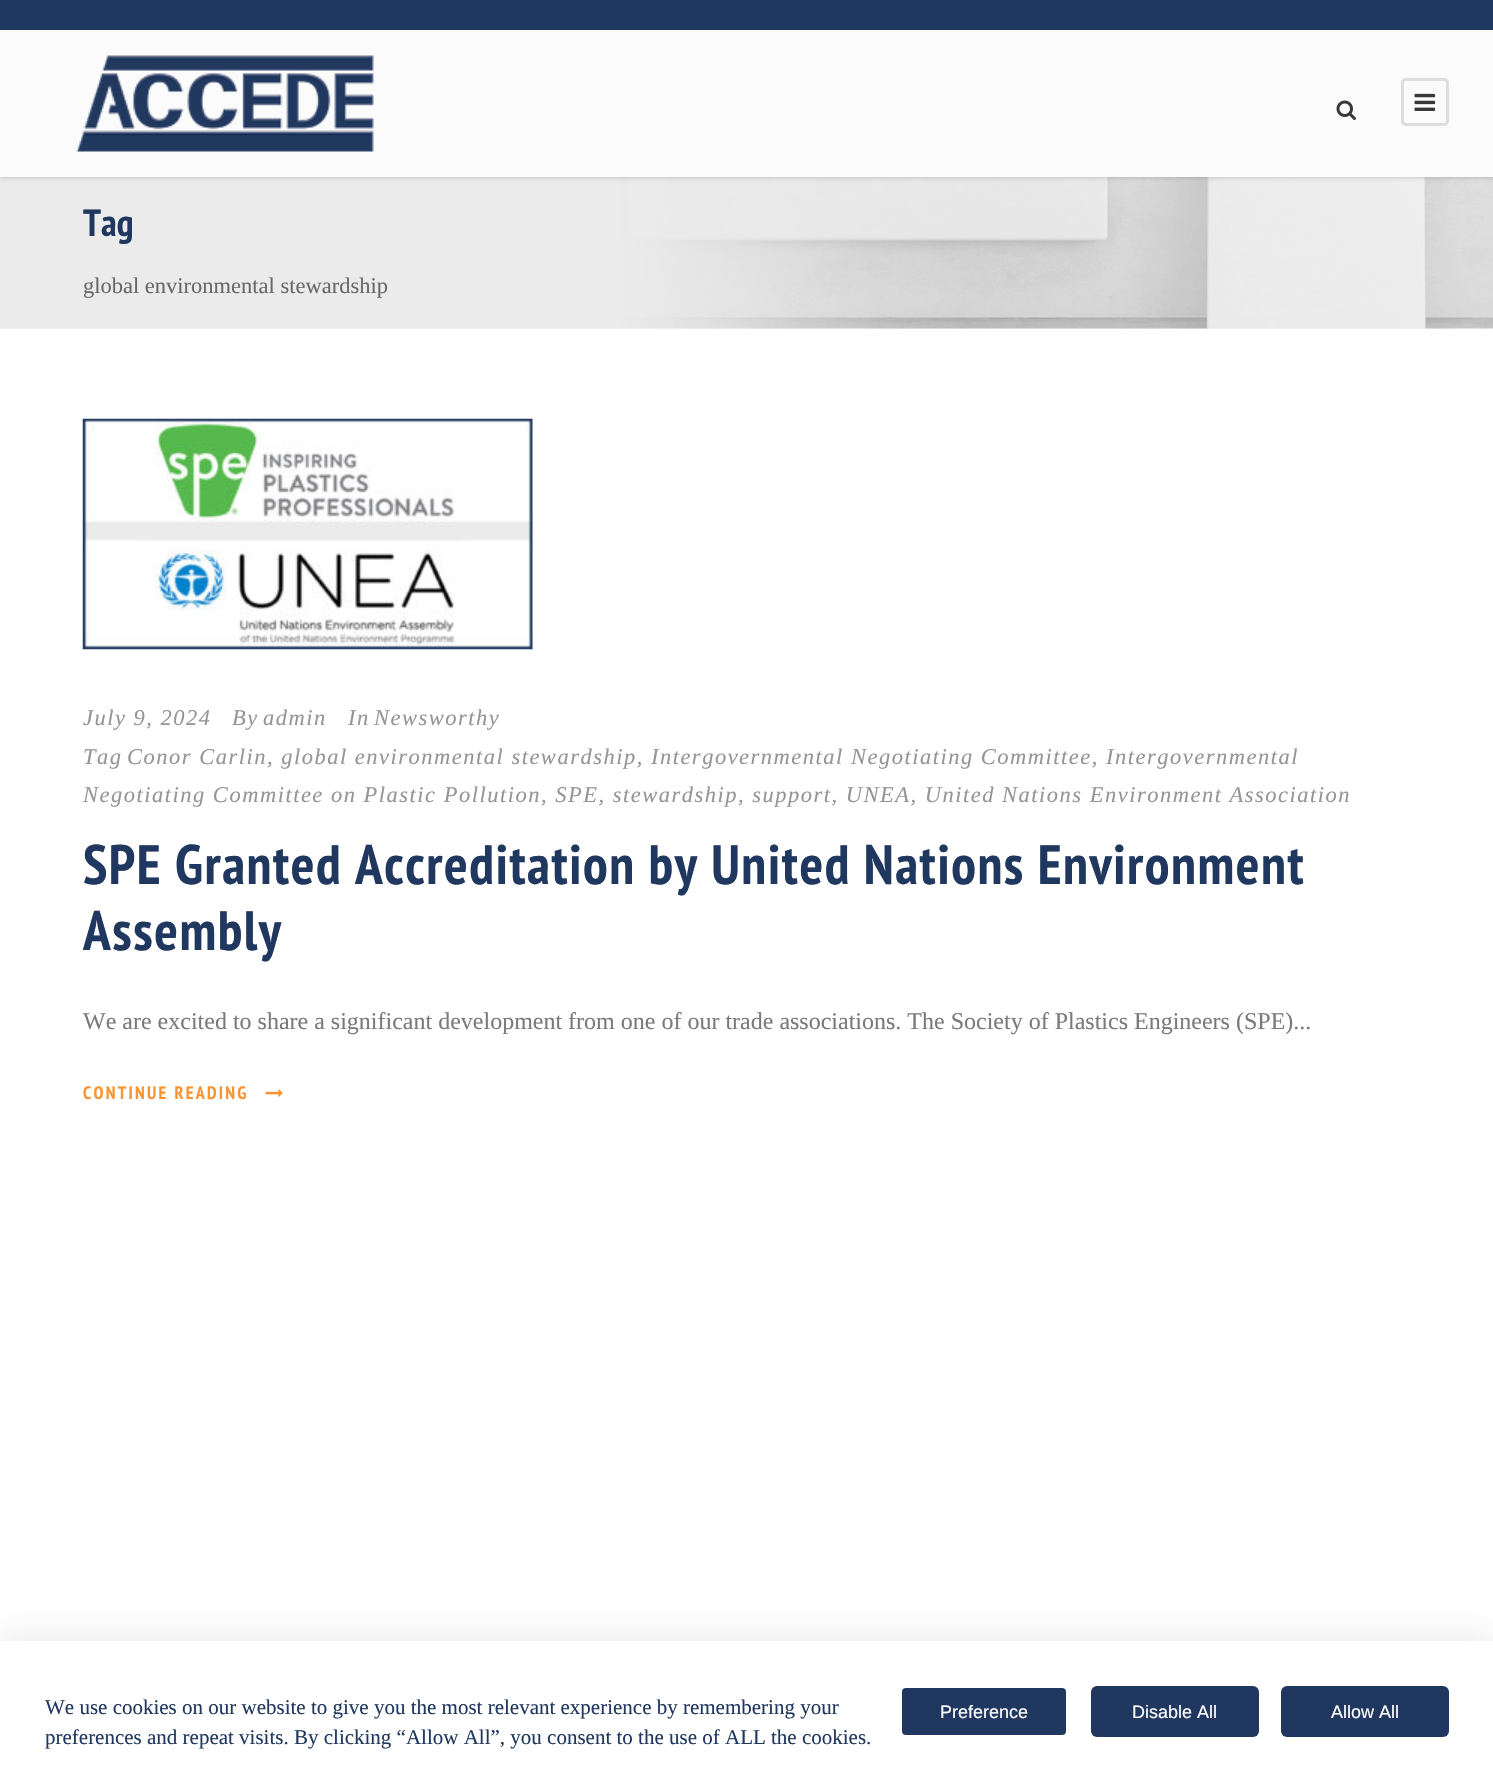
void draw(SkCanvas* canvas) {
	SkPaint fill;
	fill.setAntiAlias(true);
	auto makeFont = [&](const char* family, int weight, float size, bool italic = false) {
		SkFontStyle style(weight, SkFontStyle::kNormal_Width,
			italic ? SkFontStyle::kItalic_Slant : SkFontStyle::kUpright_Slant);
		SkFont result(fontMgr->matchFamilyStyle(family, style), size);
		result.setSubpixel(true);
		return result;
	};
	auto text = [&](const char* s, float x, float y, const SkFont& font) {
		canvas->drawString(s, x, y, font, fill);
	};
	auto spacedText = [&](const char* s, float x, float y, const SkFont& font, const SkPaint& ink, float letter, float word) {
		std::vector<SkGlyphID> glyphs(font.countText(s, strlen(s), SkTextEncoding::kUTF8));
		std::vector<float> xs(glyphs.size());
		font.textToGlyphs(s, strlen(s), SkTextEncoding::kUTF8, glyphs);
		font.getXPos(glyphs, xs, x);
		float extra = 0;
		for (size_t i = 0; i < glyphs.size(); i++) {
			xs[i] += extra;
			extra += letter + word * (glyphs[i] == font.unicharToGlyph(' '));
		}
		canvas->drawTextBlob(SkTextBlob::MakeFromPosHGlyphs(glyphs, xs, y, font), 0, 0, ink);
	};
	auto box = [&](float l, float t, float r, float b) {
		canvas->drawRect(SkRect::MakeLTRB(l, t, r, b), fill);
	};
	auto roundBox = [&](float l, float t, float r, float b, float radius) {
		canvas->drawRoundRect(SkRect::MakeLTRB(l, t, r, b), radius, radius, fill);
	};
	auto picture = [&](const char* path, float l, float t, float r, float b) {
		auto image = SkImages::DeferredFromEncodedData(SkData::MakeFromFileName(path));
		canvas->drawImageRect(image, SkRect::MakeLTRB(l, t, r, b), SkSamplingOptions());
	};
	canvas->clear(0xFFFFFFFF);
	fill.setColor(0xFFF7F7F7);
	box(0, 328, 1493, 329);
	fill.setColor(0xFF20385F);
	box(0, 0, 1493, 30);
	picture("image3.png", 0, 177, 1493, 329);
	fill.setColor(0x1A000000);
	fill.setMaskFilter(SkMaskFilter::MakeBlur(kNormal_SkBlurStyle, 1.5f));
	canvas->drawRect(SkRect::MakeLTRB(0, 32, 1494, 179), fill);
	fill.setMaskFilter(nullptr);
	fill.setColor(0xFFFBFBFB);
	box(0, 31, 1493, 177);
	picture("image0.png", 76, 55, 374, 152);
	picture("image1.png", 1336, 100, 1356, 120);
	fill.setStyle(SkPaint::kStroke_Style);
	fill.setStrokeWidth(3);
	fill.setColor(0xFFDDDDDD);
	canvas->drawRoundRect(SkRect::MakeLTRB(1402.5f, 79.5f, 1447.5f, 124.5f), 3.5f, 3.5f, fill);
	picture("image2.png", 1414, 93, 1436, 111);
	picture("image4.png", 82, 418, 533, 650);
	picture("image5.png", 265, 1089, 283, 1097);
	fill.setStyle(SkPaint::kFill_Style);
	fill.setColor(0x12000000);
	fill.setMaskFilter(SkMaskFilter::MakeBlur(kNormal_SkBlurStyle, 14));
	canvas->drawRect(SkRect::MakeLTRB(0, 1635, 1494, 1776), fill);
	fill.setMaskFilter(nullptr);
	fill.setColor(0xFFFFFFFF);
	box(0, 1641, 1493, 1782);
	fill.setColor(0xFF20385F);
	canvas->drawRoundRect(SkRect::MakeLTRB(901, 1687, 1067, 1736), 5, 5, fill);
	fill.setStyle(SkPaint::kStroke_Style);
	fill.setStrokeWidth(2);
	fill.setColor(0xFFFFFFFF);
	canvas->drawRoundRect(SkRect::MakeLTRB(901, 1687, 1067, 1736), 5, 5, fill);
	fill.setStyle(SkPaint::kFill_Style);
	fill.setColor(0xFF20385F);
	roundBox(1091, 1686, 1259, 1737, 6);
	roundBox(1281, 1686, 1449, 1737, 6);
	auto font1 = makeFont("PT Sans Narrow", 700, 38);
	text("Tag", 83, 236, font1);
	auto font2 = makeFont("Liberation Serif", 400, 22.5f);
	fill.setColor(0xFF686868);
	text("global environmental stewardship", 83, 293, font2);
	auto font3 = makeFont("Liberation Serif", 400, 22.5f, true);
	fill.setColor(0xFF959595);
	spacedText("July 9, 2024", 83, 725, font3, fill, 1.5f, 0);
	spacedText("By", 232, 725, font3, fill, 1.5f, 0);
	spacedText("admin", 263, 725, font3, fill, 1.5f, 0);
	spacedText("In", 348, 725, font3, fill, 1.5f, 0);
	spacedText("Newsworthy", 374, 725, font3, fill, 1.5f, 0);
	spacedText("Tag", 83, 764, font3, fill, 1.5f, 0);
	spacedText("Conor Carlin, global environmental stewardship, Intergovernmental Negotiating Committee, Intergovernmental", 127, 764, font3, fill, 1.5f, 0);
	spacedText("Negotiating Committee on Plastic Pollution, SPE, stewardship, support, UNEA, United Nations Environment Association", 83, 802, font3, fill, 1.5f, 0);
	auto font4 = makeFont("PT Sans Narrow", 700, 55.5f);
	fill.setColor(0xFF20385F);
	spacedText("SPE Granted Accreditation by United Nations Environment", 83, 884, font4, fill, 1.5f, 0);
	spacedText("Assembly", 83, 950, font4, fill, 1.5f, 0);
	auto font5 = makeFont("Liberation Serif", 400, 24);
	fill.setColor(0xFF7A7A7A);
	text("We are excited to share a significant development from one of our trade associations. The Society of Plastics Engineers (SPE)...", 83, 1029, font5);
	auto font6 = makeFont("PT Sans Narrow", 700, 18);
	fill.setColor(0xFFF79533);
	spacedText("CONTINUE READING", 83, 1099, font6, fill, 2.25f, 0);
	auto font7 = makeFont("Liberation Serif", 400, 21);
	fill.setColor(0xFF20385F);
	text("We use cookies on our website to give you the most relevant experience by remembering your", 45, 1714, font7);
	text("preferences and repeat visits. By clicking “Allow All”, you consent to the use of ALL the cookies.", 45, 1744, font7);
	auto font8 = makeFont("Liberation Sans", 400, 18);
	fill.setColor(0xFFFFFFFF);
	text("Preference", 940, 1718, font8);
	text("Disable All", 1132, 1718, font8);
	text("Allow All", 1331, 1718, font8);
}
